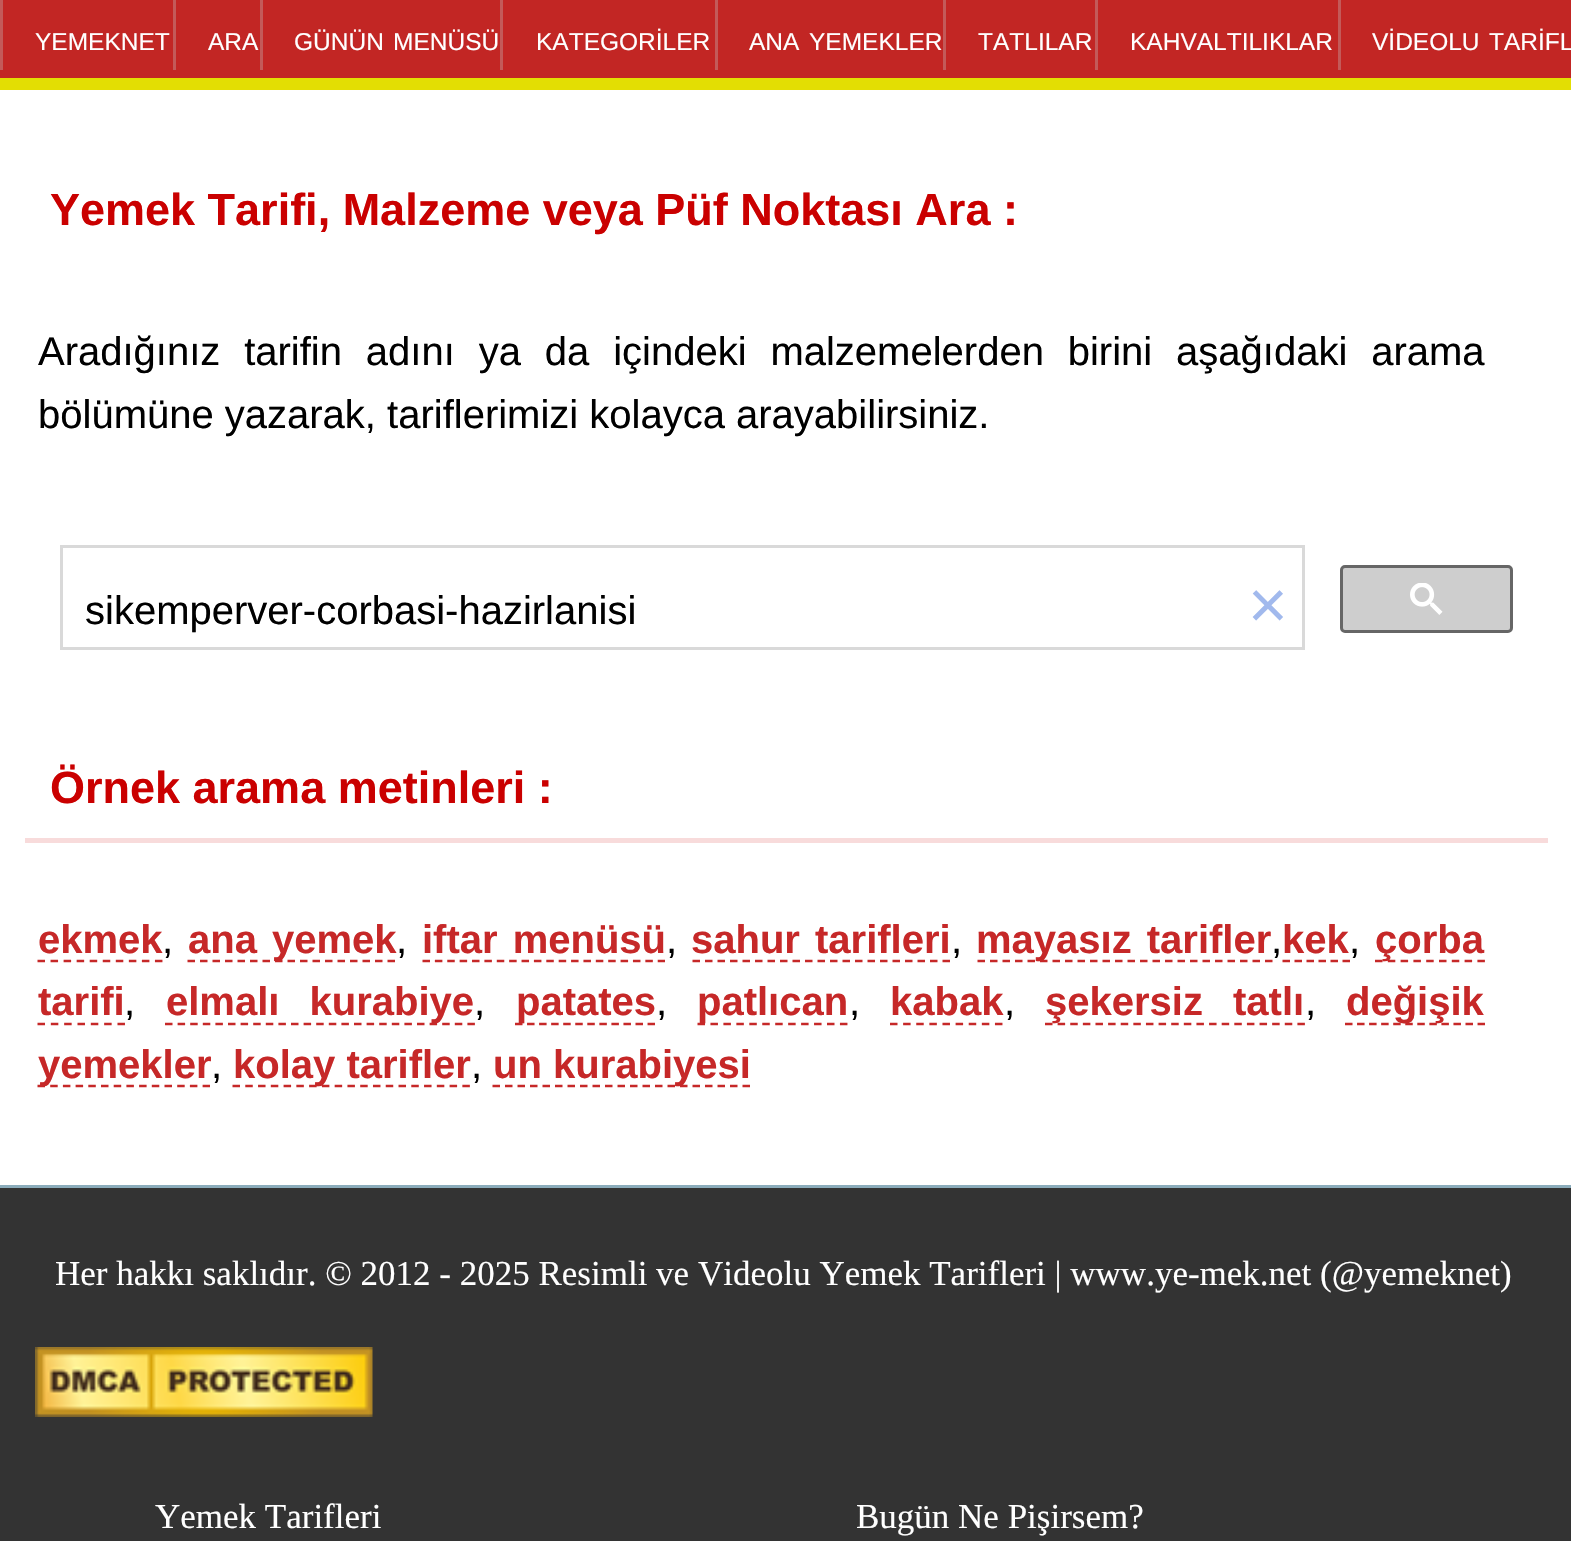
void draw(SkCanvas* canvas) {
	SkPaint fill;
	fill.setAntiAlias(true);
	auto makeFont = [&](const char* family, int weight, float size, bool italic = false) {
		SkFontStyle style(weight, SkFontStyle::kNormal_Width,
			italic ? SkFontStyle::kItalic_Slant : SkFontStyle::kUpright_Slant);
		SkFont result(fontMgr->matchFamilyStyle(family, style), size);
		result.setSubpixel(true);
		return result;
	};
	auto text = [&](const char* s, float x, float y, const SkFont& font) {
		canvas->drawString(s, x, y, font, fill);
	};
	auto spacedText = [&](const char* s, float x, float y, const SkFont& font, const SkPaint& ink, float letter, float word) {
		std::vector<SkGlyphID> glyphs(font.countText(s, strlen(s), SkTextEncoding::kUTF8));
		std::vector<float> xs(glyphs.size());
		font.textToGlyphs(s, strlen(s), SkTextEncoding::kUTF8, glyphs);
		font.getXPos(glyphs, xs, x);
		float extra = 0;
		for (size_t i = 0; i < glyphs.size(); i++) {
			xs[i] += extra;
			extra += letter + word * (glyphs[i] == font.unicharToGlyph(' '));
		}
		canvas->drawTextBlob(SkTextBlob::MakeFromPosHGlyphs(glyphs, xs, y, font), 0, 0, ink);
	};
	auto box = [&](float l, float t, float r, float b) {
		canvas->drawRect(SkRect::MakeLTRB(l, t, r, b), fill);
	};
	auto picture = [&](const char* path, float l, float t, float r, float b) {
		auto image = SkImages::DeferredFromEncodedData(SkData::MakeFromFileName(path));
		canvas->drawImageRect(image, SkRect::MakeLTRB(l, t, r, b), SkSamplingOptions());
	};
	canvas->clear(0xFFFFFFFF);
	fill.setColor(0xFFC22624);
	box(0, 0, 1571, 78);
	fill.setColor(0xFFE3DE03);
	box(0, 78, 1571, 90);
	fill.setColor(0xFFC35A59);
	box(0, 0, 3, 70);
	box(173, 0, 176, 70);
	box(260, 0, 263, 70);
	box(500, 0, 503, 70);
	box(715, 0, 718, 70);
	box(943, 0, 946, 70);
	box(1095, 0, 1098, 70);
	box(1338, 0, 1341, 70);
	fill.setStyle(SkPaint::kStroke_Style);
	fill.setStrokeWidth(3);
	fill.setColor(0xFFD9D9D9);
	canvas->drawRect(SkRect::MakeLTRB(61.5f, 546.5f, 1303.5f, 648.5f), fill);
	fill.setStyle(SkPaint::kFill_Style);
	fill.setColor(0xFFCECECE);
	canvas->drawRoundRect(SkRect::MakeLTRB(1341.5f, 566.5f, 1511.5f, 631.5f), 3.5f, 3.5f, fill);
	fill.setStyle(SkPaint::kStroke_Style);
	fill.setColor(0xFF666666);
	canvas->drawRoundRect(SkRect::MakeLTRB(1341.5f, 566.5f, 1511.5f, 631.5f), 3.5f, 3.5f, fill);
	picture("image0.png", 1410, 583, 1443, 615);
	fill.setStyle(SkPaint::kFill_Style);
	fill.setColor(0xFFF8DBDB);
	box(25, 838, 1548, 843);
	fill.setStyle(SkPaint::kStroke_Style);
	fill.setStrokeWidth(2.5f);
	fill.setColor(0xFFC62828);
	fill.setPathEffect(SkDashPathEffect::Make({{7.5f, 5.55f}}, 0));
	canvas->drawPath(SkPathBuilder().moveTo(37.5f, 961).lineTo(162.5f, 961).detach(), fill);
	fill.setPathEffect(nullptr);
	fill.setPathEffect(SkDashPathEffect::Make({{7.5f, 5}}, 0));
	canvas->drawPath(SkPathBuilder().moveTo(187.5f, 961).lineTo(395, 961).detach(), fill);
	fill.setPathEffect(nullptr);
	fill.setPathEffect(SkDashPathEffect::Make({{7.5f, 4.88f}}, 0));
	canvas->drawPath(SkPathBuilder().moveTo(422.5f, 961).lineTo(665, 961).detach(), fill);
	fill.setPathEffect(nullptr);
	fill.setPathEffect(SkDashPathEffect::Make({{7.5f, 5}}, 0));
	canvas->drawPath(SkPathBuilder().moveTo(692.5f, 961).lineTo(950, 961).detach(), fill);
	fill.setPathEffect(nullptr);
	fill.setPathEffect(SkDashPathEffect::Make({{7.5f, 5}}, 0));
	canvas->drawPath(SkPathBuilder().moveTo(977.5f, 961).lineTo(1272.5f, 961).detach(), fill);
	fill.setPathEffect(nullptr);
	fill.setPathEffect(SkDashPathEffect::Make({{7.5f, 4.5f}}, 0));
	canvas->drawPath(SkPathBuilder().moveTo(1282.5f, 961).lineTo(1350, 961).detach(), fill);
	fill.setPathEffect(nullptr);
	fill.setPathEffect(SkDashPathEffect::Make({{7.5f, 5.3f}}, 0));
	canvas->drawPath(SkPathBuilder().moveTo(1375, 961).lineTo(1485, 961).detach(), fill);
	fill.setPathEffect(nullptr);
	fill.setPathEffect(SkDashPathEffect::Make({{7.5f, 5.83f}}, 0));
	canvas->drawPath(SkPathBuilder().moveTo(37.5f, 1024).lineTo(125, 1024).detach(), fill);
	fill.setPathEffect(nullptr);
	fill.setPathEffect(SkDashPathEffect::Make({{7.5f, 5.1f}}, 0));
	canvas->drawPath(SkPathBuilder().moveTo(165, 1024).lineTo(475, 1024).detach(), fill);
	fill.setPathEffect(nullptr);
	fill.setPathEffect(SkDashPathEffect::Make({{7.5f, 4.55f}}, 0));
	canvas->drawPath(SkPathBuilder().moveTo(515, 1024).lineTo(655, 1024).detach(), fill);
	fill.setPathEffect(nullptr);
	fill.setPathEffect(SkDashPathEffect::Make({{7.5f, 5.45f}}, 0));
	canvas->drawPath(SkPathBuilder().moveTo(697.5f, 1024).lineTo(847.5f, 1024).detach(), fill);
	fill.setPathEffect(nullptr);
	fill.setPathEffect(SkDashPathEffect::Make({{7.5f, 5.62f}}, 0));
	canvas->drawPath(SkPathBuilder().moveTo(890, 1024).lineTo(1002.5f, 1024).detach(), fill);
	fill.setPathEffect(nullptr);
	fill.setPathEffect(SkDashPathEffect::Make({{7.5f, 5.12f}}, 0));
	canvas->drawPath(SkPathBuilder().moveTo(1045, 1024).lineTo(1305, 1024).detach(), fill);
	fill.setPathEffect(nullptr);
	fill.setPathEffect(SkDashPathEffect::Make({{7.5f, 4.55f}}, 0));
	canvas->drawPath(SkPathBuilder().moveTo(1345, 1024).lineTo(1485, 1024).detach(), fill);
	fill.setPathEffect(nullptr);
	fill.setPathEffect(SkDashPathEffect::Make({{7.5f, 5.2f}}, 0));
	canvas->drawPath(SkPathBuilder().moveTo(37.5f, 1086).lineTo(210, 1086).detach(), fill);
	fill.setPathEffect(nullptr);
	fill.setPathEffect(SkDashPathEffect::Make({{7.5f, 5.27f}}, 0));
	canvas->drawPath(SkPathBuilder().moveTo(232.5f, 1086).lineTo(470, 1086).detach(), fill);
	fill.setPathEffect(nullptr);
	fill.setPathEffect(SkDashPathEffect::Make({{7.5f, 5}}, 0));
	canvas->drawPath(SkPathBuilder().moveTo(492.5f, 1086).lineTo(750, 1086).detach(), fill);
	fill.setPathEffect(nullptr);
	fill.setStyle(SkPaint::kFill_Style);
	fill.setColor(0xFF8BACBB);
	box(0, 1185, 1571, 1188);
	fill.setColor(0xFF333333);
	box(0, 1188, 1571, 1541);
	picture("image1.png", 35, 1347, 373, 1417);
	auto font1 = makeFont("Liberation Sans", 400, 24.5f);
	fill.setColor(0xFFFFFFFF);
	text("YEMEKNET", 35, 50, font1);
	text("ARA", 208, 50, font1);
	text("GÜNÜN", 294, 50, font1);
	text("MENÜSÜ", 393, 50, font1);
	text("KATEGORİLER", 536, 50, font1);
	text("ANA", 749, 50, font1);
	text("YEMEKLER", 809, 50, font1);
	text("TATLILAR", 978, 50, font1);
	text("KAHVALTILIKLAR", 1130, 50, font1);
	text("VİDEOLU", 1372, 50, font1);
	text("TARİFL", 1489, 50, font1);
	auto font2 = makeFont("Liberation Sans", 700, 45);
	fill.setColor(0xFFCA0000);
	text("Yemek Tarifi, Malzeme veya Püf Noktası Ara :", 50, 225, font2);
	auto font3 = makeFont("Liberation Sans", 400, 40);
	fill.setColor(0xFF000000);
	spacedText("Aradığınız tarifin adını ya da içindeki malzemelerden birini aşağıdaki arama", 38, 365, font3, fill, 0, 12.75f);
	text("bölümüne yazarak, tariflerimizi kolayca arayabilirsiniz.", 38, 428, font3);
	text("sikemperver-corbasi-hazirlanisi", 85, 624, font3);
	auto font4 = makeFont("Liberation Sans", 400, 68);
	fill.setColor(0xFFA1B9ED);
	text("×", 1248, 628, font4);
	fill.setColor(0xFFCA0000);
	text("Örnek arama metinleri :", 50, 803, font2);
	auto font5 = makeFont("Liberation Sans", 700, 40);
	fill.setColor(0xFFC62828);
	text("ekmek", 38, 953, font5);
	fill.setColor(0xFF000000);
	text(",", 162, 953, font3);
	fill.setColor(0xFFC62828);
	spacedText("ana yemek", 188, 953, font5, fill, 0, 4);
	fill.setColor(0xFF000000);
	text(",", 396, 953, font3);
	fill.setColor(0xFFC62828);
	spacedText("iftar menüsü", 422, 953, font5, fill, 0, 4);
	fill.setColor(0xFF000000);
	text(",", 666, 953, font3);
	fill.setColor(0xFFC62828);
	spacedText("sahur tarifleri", 691, 953, font5, fill, 0, 4);
	fill.setColor(0xFF000000);
	text(",", 951, 953, font3);
	fill.setColor(0xFFC62828);
	spacedText("mayasız tarifler", 976, 953, font5, fill, 0, 4);
	fill.setColor(0xFF000000);
	text(",", 1271, 953, font3);
	fill.setColor(0xFFC62828);
	text("kek", 1282, 953, font5);
	fill.setColor(0xFF000000);
	text(",", 1349, 953, font3);
	fill.setColor(0xFFC62828);
	text("çorba", 1375, 953, font5);
	text("tarifi", 38, 1015, font5);
	fill.setColor(0xFF000000);
	text(",", 124, 1015, font3);
	fill.setColor(0xFFC62828);
	spacedText("elmalı kurabiye", 166, 1015, font5, fill, 0, 19);
	fill.setColor(0xFF000000);
	text(",", 474, 1015, font3);
	fill.setColor(0xFFC62828);
	text("patates", 516, 1015, font5);
	fill.setColor(0xFF000000);
	text(",", 656, 1015, font3);
	fill.setColor(0xFFC62828);
	text("patlıcan", 697, 1015, font5);
	fill.setColor(0xFF000000);
	text(",", 849, 1015, font3);
	fill.setColor(0xFFC62828);
	text("kabak", 890, 1015, font5);
	fill.setColor(0xFF000000);
	text(",", 1004, 1015, font3);
	fill.setColor(0xFFC62828);
	spacedText("şekersiz tatlı", 1045, 1015, font5, fill, 0, 19);
	fill.setColor(0xFF000000);
	text(",", 1305, 1015, font3);
	fill.setColor(0xFFC62828);
	text("değişik", 1346, 1015, font5);
	text("yemekler", 38, 1078, font5);
	fill.setColor(0xFF000000);
	text(",", 211, 1078, font3);
	fill.setColor(0xFFC62828);
	text("kolay tarifler", 233, 1078, font5);
	fill.setColor(0xFF000000);
	text(",", 471, 1078, font3);
	fill.setColor(0xFFC62828);
	text("un kurabiyesi", 493, 1078, font5);
	auto font6 = makeFont("Liberation Serif", 400, 35);
	fill.setColor(0xFFFFFFFF);
	text("Her hakkı saklıdır. © 2012 - 2025 Resimli ve Videolu Yemek Tarifleri | www.ye-mek.net (@yemeknet)", 55, 1285, font6);
	text("Yemek Tarifleri", 155, 1528, font6);
	text("Bugün Ne Pişirsem?", 856, 1528, font6);
}
